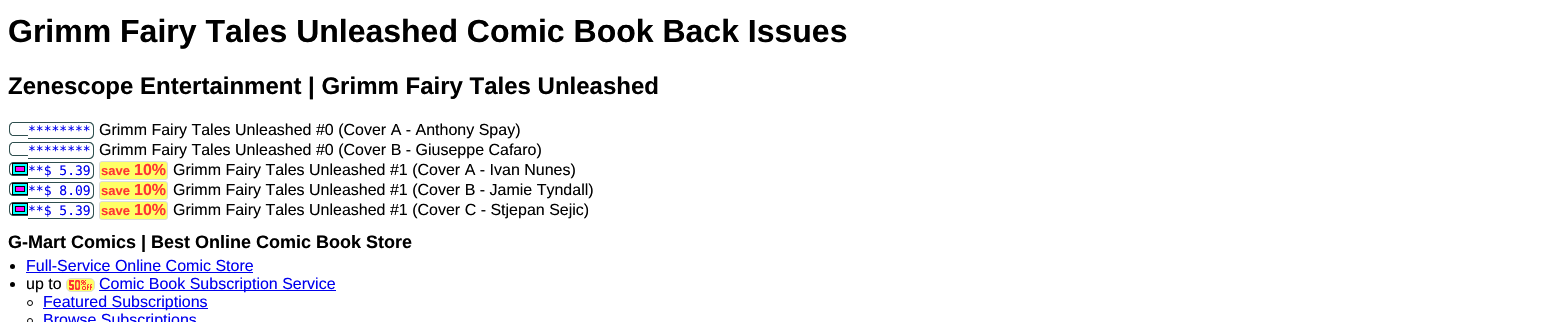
void draw(SkCanvas* canvas) {
	SkPaint fill;
	fill.setAntiAlias(true);
	auto makeFont = [&](const char* family, int weight, float size, bool italic = false) {
		SkFontStyle style(weight, SkFontStyle::kNormal_Width,
			italic ? SkFontStyle::kItalic_Slant : SkFontStyle::kUpright_Slant);
		SkFont result(fontMgr->matchFamilyStyle(family, style), size);
		result.setSubpixel(true);
		return result;
	};
	auto text = [&](const char* s, float x, float y, const SkFont& font) {
		canvas->drawString(s, x, y, font, fill);
	};
	auto box = [&](float l, float t, float r, float b) {
		canvas->drawRect(SkRect::MakeLTRB(l, t, r, b), fill);
	};
	auto picture = [&](const char* path, float l, float t, float r, float b) {
		auto image = SkImages::DeferredFromEncodedData(SkData::MakeFromFileName(path));
		canvas->drawImageRect(image, SkRect::MakeLTRB(l, t, r, b), SkSamplingOptions());
	};
	canvas->clear(0xFFFFFFFF);
	fill.setColor(0xFF2F4F4F);
	canvas->drawPath(SkPathBuilder(SkPathFillType::kEvenOdd).moveTo(14, 122).lineTo(28, 122).lineTo(28, 136).lineTo(14, 136).cubicTo(11, 136, 9, 134, 9, 131).lineTo(9, 127).cubicTo(9, 124, 11, 122, 14, 122).close().moveTo(14, 123).lineTo(28, 123).lineTo(28, 135).lineTo(16.5f, 135).cubicTo(10, 135, 10, 133.5f, 10, 128).cubicTo(10, 125.5f, 11, 123, 14, 123).close().detach(), fill);
	canvas->drawPath(SkPathBuilder(SkPathFillType::kEvenOdd).moveTo(28, 122).lineTo(89, 122).cubicTo(92, 122, 94, 124, 94, 127).lineTo(94, 134).cubicTo(94, 137, 92, 139, 89, 139).lineTo(28, 139).close().moveTo(28, 123).lineTo(89, 123).cubicTo(91, 123, 93, 125, 93, 127).lineTo(93, 134).cubicTo(93, 136, 91, 138, 89, 138).lineTo(28, 138).close().detach(), fill);
	fill.setColor(0xFFFFFFFF);
	box(12, 123, 16, 135);
	fill.setColor(0xFF2F4F4F);
	canvas->drawPath(SkPathBuilder(SkPathFillType::kEvenOdd).moveTo(14, 142).lineTo(28, 142).lineTo(28, 156).lineTo(14, 156).cubicTo(11, 156, 9, 154, 9, 151).lineTo(9, 147).cubicTo(9, 144, 11, 142, 14, 142).close().moveTo(14, 143).lineTo(28, 143).lineTo(28, 155).lineTo(16.5f, 155).cubicTo(10, 155, 10, 153.5f, 10, 148).cubicTo(10, 145.5f, 11, 143, 14, 143).close().detach(), fill);
	canvas->drawPath(SkPathBuilder(SkPathFillType::kEvenOdd).moveTo(28, 142).lineTo(89, 142).cubicTo(92, 142, 94, 144, 94, 147).lineTo(94, 154).cubicTo(94, 157, 92, 159, 89, 159).lineTo(28, 159).close().moveTo(28, 143).lineTo(89, 143).cubicTo(91, 143, 93, 145, 93, 147).lineTo(93, 154).cubicTo(93, 156, 91, 158, 89, 158).lineTo(28, 158).close().detach(), fill);
	fill.setColor(0xFFFFFFFF);
	box(12, 143, 16, 155);
	fill.setColor(0xFF2F4F4F);
	canvas->drawPath(SkPathBuilder(SkPathFillType::kEvenOdd).moveTo(14, 162).lineTo(28, 162).lineTo(28, 176).lineTo(14, 176).cubicTo(11, 176, 9, 174, 9, 171).lineTo(9, 167).cubicTo(9, 164, 11, 162, 14, 162).close().moveTo(14, 163).lineTo(28, 163).lineTo(28, 175).lineTo(16.5f, 175).cubicTo(10, 175, 10, 173.5f, 10, 168).cubicTo(10, 165.5f, 11, 163, 14, 163).close().detach(), fill);
	picture("image0.png", 12, 163, 28, 175);
	canvas->drawPath(SkPathBuilder(SkPathFillType::kEvenOdd).moveTo(28, 162).lineTo(89, 162).cubicTo(92, 162, 94, 164, 94, 167).lineTo(94, 174).cubicTo(94, 177, 92, 179, 89, 179).lineTo(28, 179).close().moveTo(28, 163).lineTo(89, 163).cubicTo(91, 163, 93, 165, 93, 167).lineTo(93, 174).cubicTo(93, 176, 91, 178, 89, 178).lineTo(28, 178).close().detach(), fill);
	fill.setColor(0xFFFFFF66);
	canvas->drawRoundRect(SkRect::MakeLTRB(99.5f, 161.5f, 167.5f, 179.5f), 2.5f, 2.5f, fill);
	fill.setStyle(SkPaint::kStroke_Style);
	fill.setStrokeWidth(1);
	fill.setColor(0xFFDCDCDC);
	canvas->drawRoundRect(SkRect::MakeLTRB(99.5f, 161.5f, 167.5f, 179.5f), 2.5f, 2.5f, fill);
	fill.setStyle(SkPaint::kFill_Style);
	fill.setColor(0xFF2F4F4F);
	canvas->drawPath(SkPathBuilder(SkPathFillType::kEvenOdd).moveTo(14, 182).lineTo(28, 182).lineTo(28, 196).lineTo(14, 196).cubicTo(11, 196, 9, 194, 9, 191).lineTo(9, 187).cubicTo(9, 184, 11, 182, 14, 182).close().moveTo(14, 183).lineTo(28, 183).lineTo(28, 195).lineTo(16.5f, 195).cubicTo(10, 195, 10, 193.5f, 10, 188).cubicTo(10, 185.5f, 11, 183, 14, 183).close().detach(), fill);
	picture("image0.png", 12, 183, 28, 195);
	canvas->drawPath(SkPathBuilder(SkPathFillType::kEvenOdd).moveTo(28, 182).lineTo(89, 182).cubicTo(92, 182, 94, 184, 94, 187).lineTo(94, 194).cubicTo(94, 197, 92, 199, 89, 199).lineTo(28, 199).close().moveTo(28, 183).lineTo(89, 183).cubicTo(91, 183, 93, 185, 93, 187).lineTo(93, 194).cubicTo(93, 196, 91, 198, 89, 198).lineTo(28, 198).close().detach(), fill);
	fill.setColor(0xFFFFFF66);
	canvas->drawRoundRect(SkRect::MakeLTRB(99.5f, 181.5f, 167.5f, 199.5f), 2.5f, 2.5f, fill);
	fill.setStyle(SkPaint::kStroke_Style);
	fill.setColor(0xFFDCDCDC);
	canvas->drawRoundRect(SkRect::MakeLTRB(99.5f, 181.5f, 167.5f, 199.5f), 2.5f, 2.5f, fill);
	fill.setStyle(SkPaint::kFill_Style);
	fill.setColor(0xFF2F4F4F);
	canvas->drawPath(SkPathBuilder(SkPathFillType::kEvenOdd).moveTo(14, 202).lineTo(28, 202).lineTo(28, 216).lineTo(14, 216).cubicTo(11, 216, 9, 214, 9, 211).lineTo(9, 207).cubicTo(9, 204, 11, 202, 14, 202).close().moveTo(14, 203).lineTo(28, 203).lineTo(28, 215).lineTo(16.5f, 215).cubicTo(10, 215, 10, 213.5f, 10, 208).cubicTo(10, 205.5f, 11, 203, 14, 203).close().detach(), fill);
	picture("image0.png", 12, 203, 28, 215);
	canvas->drawPath(SkPathBuilder(SkPathFillType::kEvenOdd).moveTo(28, 202).lineTo(89, 202).cubicTo(92, 202, 94, 204, 94, 207).lineTo(94, 214).cubicTo(94, 217, 92, 219, 89, 219).lineTo(28, 219).close().moveTo(28, 203).lineTo(89, 203).cubicTo(91, 203, 93, 205, 93, 207).lineTo(93, 214).cubicTo(93, 216, 91, 218, 89, 218).lineTo(28, 218).close().detach(), fill);
	fill.setColor(0xFFFFFF66);
	canvas->drawRoundRect(SkRect::MakeLTRB(99.5f, 201.5f, 167.5f, 219.5f), 2.5f, 2.5f, fill);
	fill.setStyle(SkPaint::kStroke_Style);
	fill.setColor(0xFFDCDCDC);
	canvas->drawRoundRect(SkRect::MakeLTRB(99.5f, 201.5f, 167.5f, 219.5f), 2.5f, 2.5f, fill);
	fill.setStyle(SkPaint::kFill_Style);
	fill.setColor(0xFF000000);
	canvas->drawCircle(12.5f, 266.5f, 2.5f, fill);
	fill.setColor(0xFF0000EE);
	box(26, 272, 253, 273);
	fill.setColor(0xFF000000);
	canvas->drawCircle(12.5f, 284.5f, 2.5f, fill);
	fill.setColor(0xFFFFFF66);
	canvas->drawRoundRect(SkRect::MakeLTRB(66.5f, 278.5f, 94.5f, 291.5f), 4.5f, 4.5f, fill);
	fill.setStyle(SkPaint::kStroke_Style);
	fill.setColor(0xFFDCDCDC);
	canvas->drawRoundRect(SkRect::MakeLTRB(66.5f, 278.5f, 94.5f, 291.5f), 4.5f, 4.5f, fill);
	picture("image1.png", 69, 280, 92, 290);
	fill.setStyle(SkPaint::kFill_Style);
	fill.setColor(0xFF0000EE);
	box(99, 290, 336, 291);
	fill.setStyle(SkPaint::kStroke_Style);
	fill.setColor(0xFF000000);
	canvas->drawCircle(30, 303, 2.5f, fill);
	fill.setStyle(SkPaint::kFill_Style);
	fill.setColor(0xFF0000EE);
	box(43, 308, 208, 309);
	fill.setStyle(SkPaint::kStroke_Style);
	fill.setColor(0xFF000000);
	canvas->drawCircle(30, 321, 2.5f, fill);
	auto font1 = makeFont("Liberation Sans", 700, 32);
	fill.setStyle(SkPaint::kFill_Style);
	text("Grimm Fairy Tales Unleashed Comic Book Back Issues", 8, 42, font1);
	auto font2 = makeFont("Liberation Sans", 700, 24);
	text("Zenescope Entertainment | Grimm Fairy Tales Unleashed", 8, 94, font2);
	auto font3 = makeFont("DejaVu Sans Mono", 400, 13);
	fill.setColor(0xFF0000EE);
	text("********", 28, 135, font3);
	auto font4 = makeFont("Liberation Sans", 400, 16);
	fill.setColor(0xFF000000);
	text("Grimm Fairy Tales Unleashed #0 (Cover A - Anthony Spay)", 99, 135, font4);
	fill.setColor(0xFF0000EE);
	text("********", 28, 155, font3);
	fill.setColor(0xFF000000);
	text("Grimm Fairy Tales Unleashed #0 (Cover B - Giuseppe Cafaro)", 99, 155, font4);
	fill.setColor(0xFF0000EE);
	text("**$ 5.39", 28, 175, font3);
	auto font5 = makeFont("Liberation Sans", 700, 13);
	fill.setColor(0xFFFF3333);
	text("save", 101, 175, font5);
	auto font6 = makeFont("Liberation Sans", 700, 16);
	text("10%", 134, 175, font6);
	fill.setColor(0xFF000000);
	text("Grimm Fairy Tales Unleashed #1 (Cover A - Ivan Nunes)", 173, 175, font4);
	fill.setColor(0xFF0000EE);
	text("**$ 8.09", 28, 195, font3);
	fill.setColor(0xFFFF3333);
	text("save", 101, 195, font5);
	text("10%", 134, 195, font6);
	fill.setColor(0xFF000000);
	text("Grimm Fairy Tales Unleashed #1 (Cover B - Jamie Tyndall)", 173, 195, font4);
	fill.setColor(0xFF0000EE);
	text("**$ 5.39", 28, 215, font3);
	fill.setColor(0xFFFF3333);
	text("save", 101, 215, font5);
	text("10%", 134, 215, font6);
	fill.setColor(0xFF000000);
	text("Grimm Fairy Tales Unleashed #1 (Cover C - Stjepan Sejic)", 173, 215, font4);
	auto font7 = makeFont("Liberation Sans", 700, 18);
	text("G-Mart Comics | Best Online Comic Book Store", 8, 248, font7);
	fill.setColor(0xFF0000EE);
	text("Full-Service Online Comic Store", 26, 271, font4);
	fill.setColor(0xFF000000);
	text("up to", 26, 289, font4);
	fill.setColor(0xFF0000EE);
	text("Comic Book Subscription Service", 99, 289, font4);
	text("Featured Subscriptions", 43, 307, font4);
	text("Browse Subscriptions", 43, 325, font4);
}
